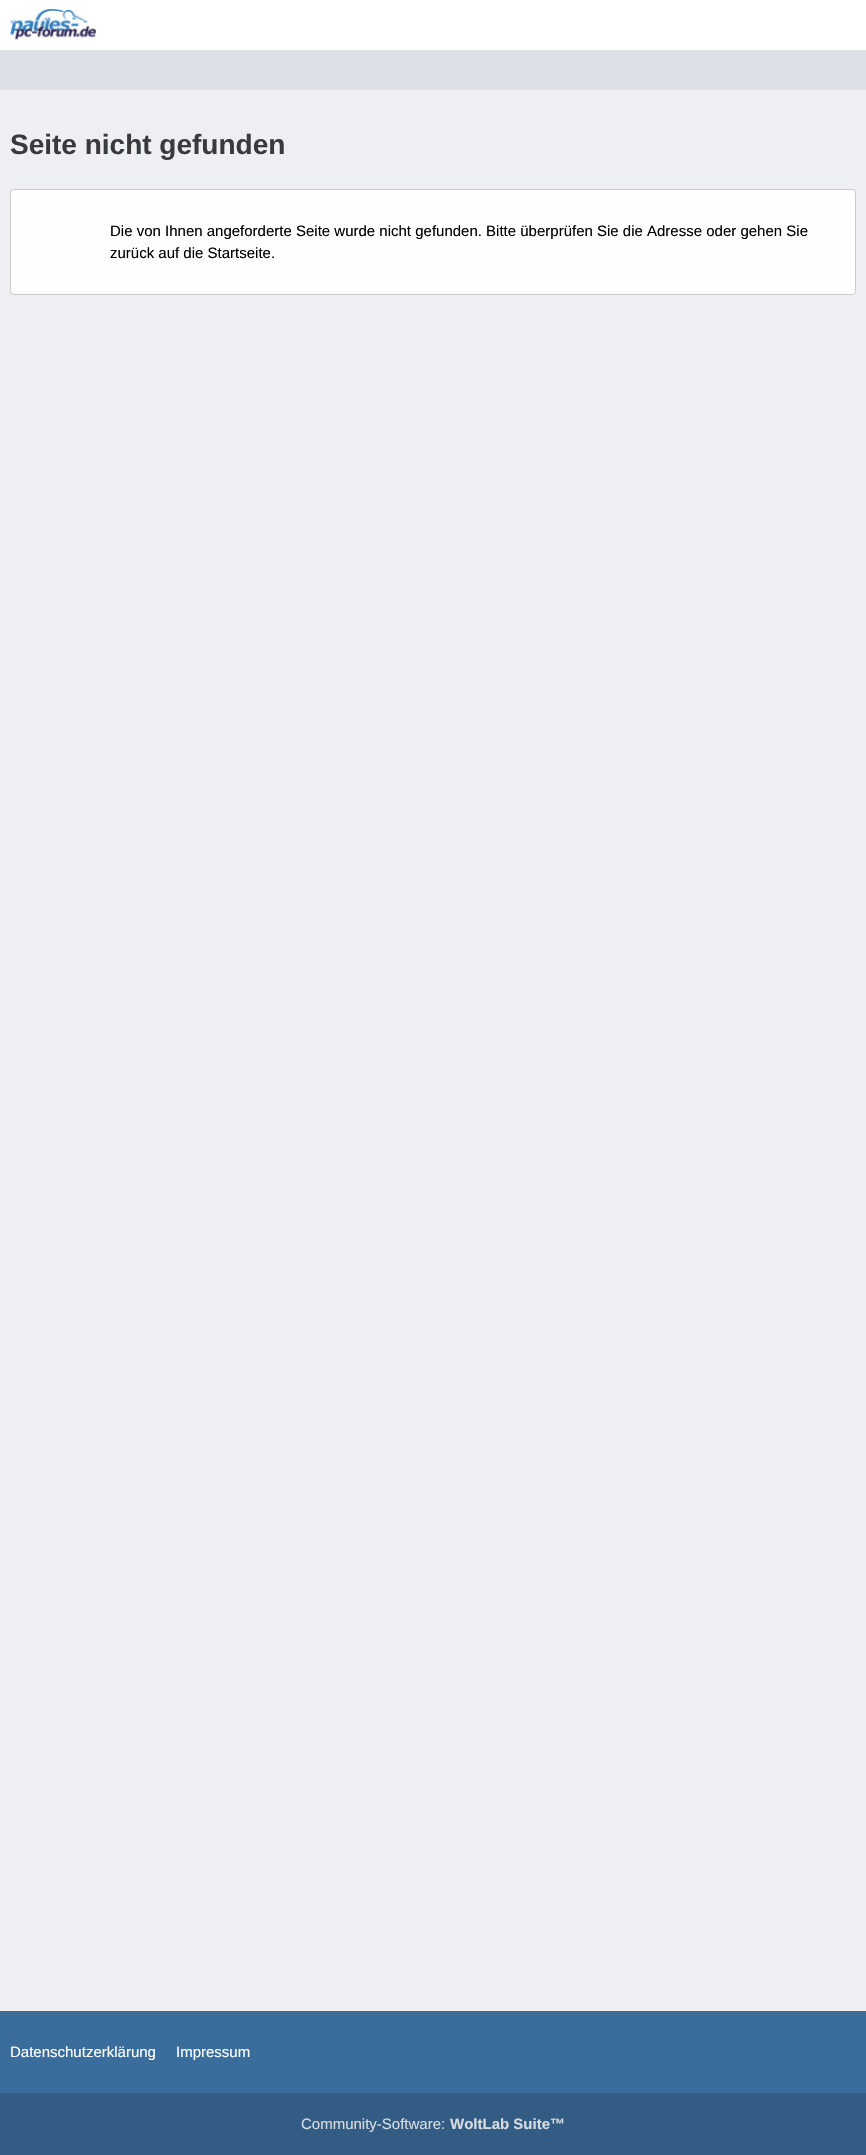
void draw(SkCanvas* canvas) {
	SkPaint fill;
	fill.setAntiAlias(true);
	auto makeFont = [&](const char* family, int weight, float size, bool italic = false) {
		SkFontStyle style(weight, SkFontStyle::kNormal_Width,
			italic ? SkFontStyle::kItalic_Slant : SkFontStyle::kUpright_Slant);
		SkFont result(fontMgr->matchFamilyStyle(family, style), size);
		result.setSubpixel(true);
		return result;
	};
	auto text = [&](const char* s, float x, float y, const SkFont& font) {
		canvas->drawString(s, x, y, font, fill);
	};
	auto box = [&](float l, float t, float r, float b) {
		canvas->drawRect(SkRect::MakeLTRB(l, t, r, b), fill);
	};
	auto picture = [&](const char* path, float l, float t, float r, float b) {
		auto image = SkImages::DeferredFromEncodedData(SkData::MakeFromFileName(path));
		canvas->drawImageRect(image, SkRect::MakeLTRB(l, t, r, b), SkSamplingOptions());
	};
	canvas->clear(0xFFEDEFF2);
	fill.setColor(0xFFFFFFFF);
	box(0, 0, 866, 50);
	picture("image0.png", 10, 9, 96, 40);
	fill.setColor(0xFFDDE0E6);
	box(0, 50, 866, 90);
	fill.setColor(0xFFFEFEFE);
	canvas->drawRoundRect(SkRect::MakeLTRB(10.5f, 189.5f, 855.5f, 294.5f), 3.5f, 3.5f, fill);
	fill.setStyle(SkPaint::kStroke_Style);
	fill.setStrokeWidth(1);
	fill.setColor(0xFFCBCBCB);
	canvas->drawRoundRect(SkRect::MakeLTRB(10.5f, 189.5f, 855.5f, 294.5f), 3.5f, 3.5f, fill);
	fill.setStyle(SkPaint::kFill_Style);
	fill.setColor(0xFF3A6D9C);
	box(0, 2011, 866, 2093);
	fill.setColor(0xFF325C84);
	box(0, 2093, 866, 2155);
	auto font1 = makeFont("Liberation Sans", 700, 28);
	fill.setColor(0xFF3A3A3D);
	text("Seite nicht gefunden", 10, 154, font1);
	auto font2 = makeFont("Liberation Sans", 400, 15);
	fill.setColor(0xFF000000);
	text("Die von Ihnen angeforderte Seite wurde nicht gefunden. Bitte überprüfen Sie die Adresse oder gehen Sie", 110, 236, font2);
	text("zurück auf die Startseite.", 110, 258, font2);
	fill.setColor(0xFFFFFFFF);
	text("Datenschutzerklärung", 10, 2057, font2);
	text("Impressum", 176, 2057, font2);
	fill.setColor(0xFFD9DCDE);
	text("Community-Software:", 301, 2129, font2);
	auto font3 = makeFont("Liberation Sans", 700, 15);
	text("WoltLab Suite™", 450, 2129, font3);
}
